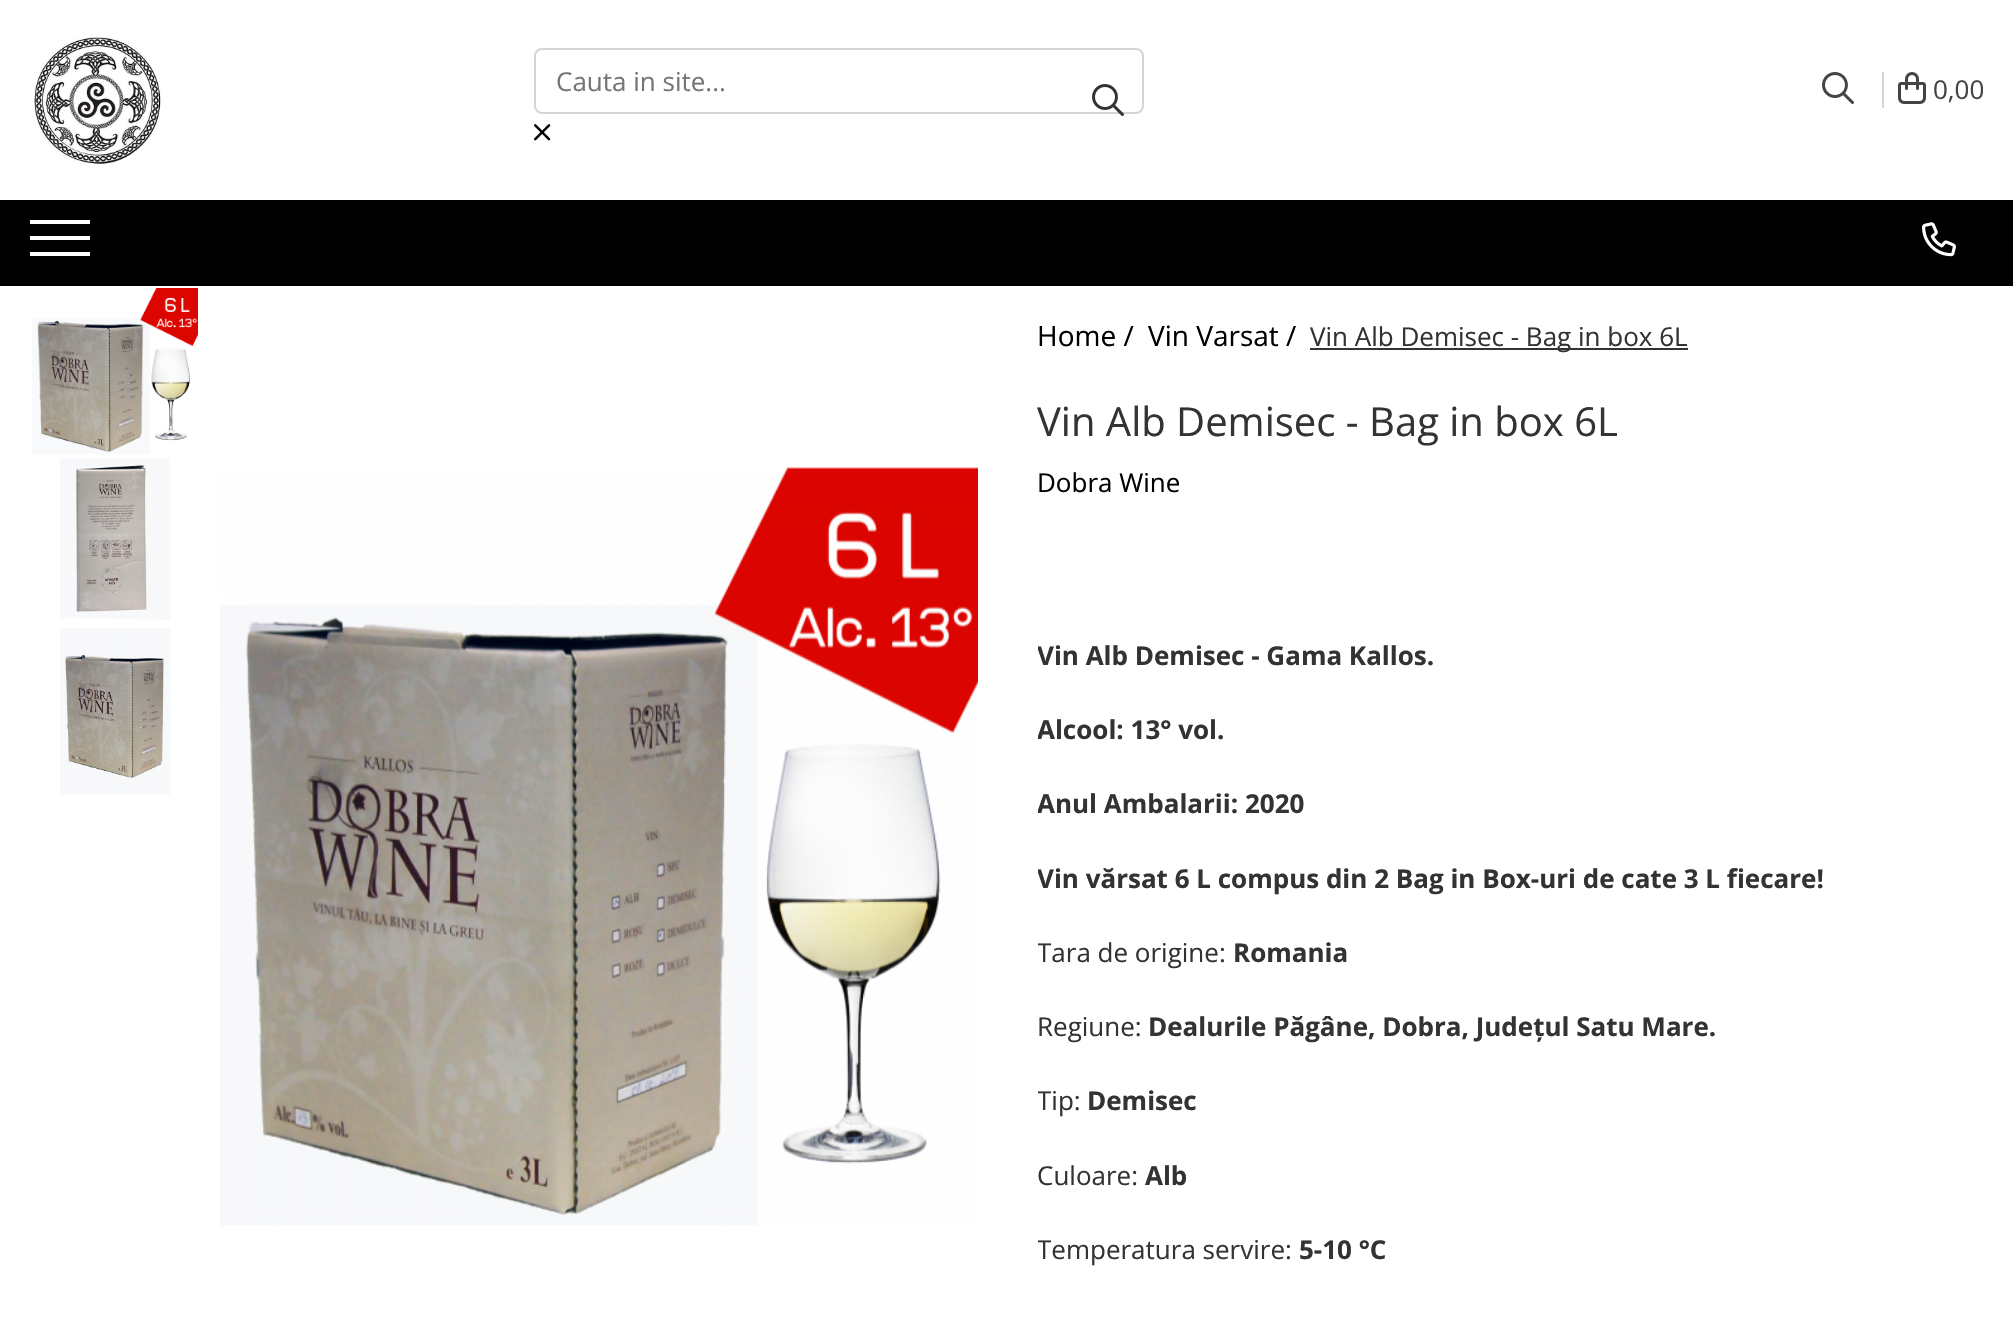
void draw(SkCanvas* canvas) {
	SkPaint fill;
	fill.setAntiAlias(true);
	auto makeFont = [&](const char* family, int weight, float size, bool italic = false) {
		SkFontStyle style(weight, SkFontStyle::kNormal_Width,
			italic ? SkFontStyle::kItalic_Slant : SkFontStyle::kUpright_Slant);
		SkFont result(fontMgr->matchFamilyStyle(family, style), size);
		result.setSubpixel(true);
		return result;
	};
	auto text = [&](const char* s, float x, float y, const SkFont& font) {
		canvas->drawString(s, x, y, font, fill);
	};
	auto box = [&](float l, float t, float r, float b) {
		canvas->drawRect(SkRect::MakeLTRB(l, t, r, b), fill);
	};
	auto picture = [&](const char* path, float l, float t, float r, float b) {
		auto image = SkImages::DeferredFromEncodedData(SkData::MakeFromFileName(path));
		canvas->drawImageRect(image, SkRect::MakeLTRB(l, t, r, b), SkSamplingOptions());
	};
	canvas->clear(0xFFFFFFFF);
	picture("image0.png", 34, 37, 161, 164);
	fill.setStyle(SkPaint::kStroke_Style);
	fill.setStrokeWidth(2);
	fill.setColor(0xFFD5D5D5);
	canvas->drawRoundRect(SkRect::MakeLTRB(535, 49, 1143, 113), 7, 7, fill);
	picture("image1.png", 1092, 84, 1124, 116);
	picture("image2.png", 534, 124, 551, 141);
	picture("image3.png", 1822, 72, 1854, 104);
	fill.setStyle(SkPaint::kFill_Style);
	box(1882, 72, 1884, 108);
	picture("image4.png", 1898, 72, 1926, 104);
	fill.setColor(0xFF000000);
	box(0, 200, 2013, 286);
	fill.setColor(0xFFFFFFFF);
	box(30, 236, 90, 240);
	box(30, 220, 90, 224);
	box(30, 252, 90, 256);
	picture("image5.png", 1922, 222, 1956, 257);
	picture("image6.png", 32, 288, 198, 454);
	picture("image7.png", 60, 458, 170, 620);
	picture("image8.png", 60, 628, 170, 794);
	picture("image9.png", 220, 467, 978, 1226);
	fill.setColor(0xFF333333);
	box(1310, 348, 1688, 350);
	auto font1 = makeFont("Open Sans", 400, 26);
	fill.setColor(0xFF757575);
	text("Cauta in site...", 556, 91, font1);
	fill.setColor(0xFF444444);
	text("0,00", 1933, 99, font1);
	auto font2 = makeFont("Open Sans", 400, 28);
	fill.setColor(0xFF000000);
	text("Home /", 1037, 346, font2);
	text("Vin Varsat /", 1148, 346, font2);
	fill.setColor(0xFF333333);
	text("Vin Alb Demisec - Bag in box 6L", 1310, 346, font1);
	auto font3 = makeFont("Open Sans", 400, 40);
	text("Vin Alb Demisec - Bag in box 6L", 1037, 436, font3);
	fill.setColor(0xFF000000);
	text("Dobra Wine", 1037, 492, font1);
	canvas->save();
	canvas->clipRect(SkRect::MakeLTRB(1038, 636, 1984, 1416));
	auto font4 = makeFont("Open Sans", 700, 26);
	fill.setColor(0xFF333333);
	text("Vin Alb Demisec - Gama Kallos.", 1037, 665, font4);
	text("Alcool: 13° vol.", 1037, 739, font4);
	text("Anul Ambalarii: 2020", 1037, 813, font4);
	text("Vin vărsat 6 L compus din 2 Bag in Box-uri de cate 3 L fiecare!", 1037, 888, font4);
	text("Tara de origine:", 1037, 962, font1);
	canvas->restore();
	text("Romania", 1233, 962, font4);
	text("Regiune:", 1037, 1036, font1);
	text("Dealurile Păgâne, Dobra, Județul Satu Mare.", 1148, 1036, font4);
	canvas->save();
	canvas->clipRect(SkRect::MakeLTRB(1038, 636, 1984, 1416));
	text("Tip:", 1037, 1110, font1);
	canvas->restore();
	text("Demisec", 1087, 1110, font4);
	text("Culoare:", 1037, 1185, font1);
	text("Alb", 1145, 1185, font4);
	canvas->save();
	canvas->clipRect(SkRect::MakeLTRB(1038, 636, 1984, 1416));
	text("Temperatura servire:", 1037, 1259, font1);
	canvas->restore();
	text("5-10 °C", 1299, 1259, font4);
}
